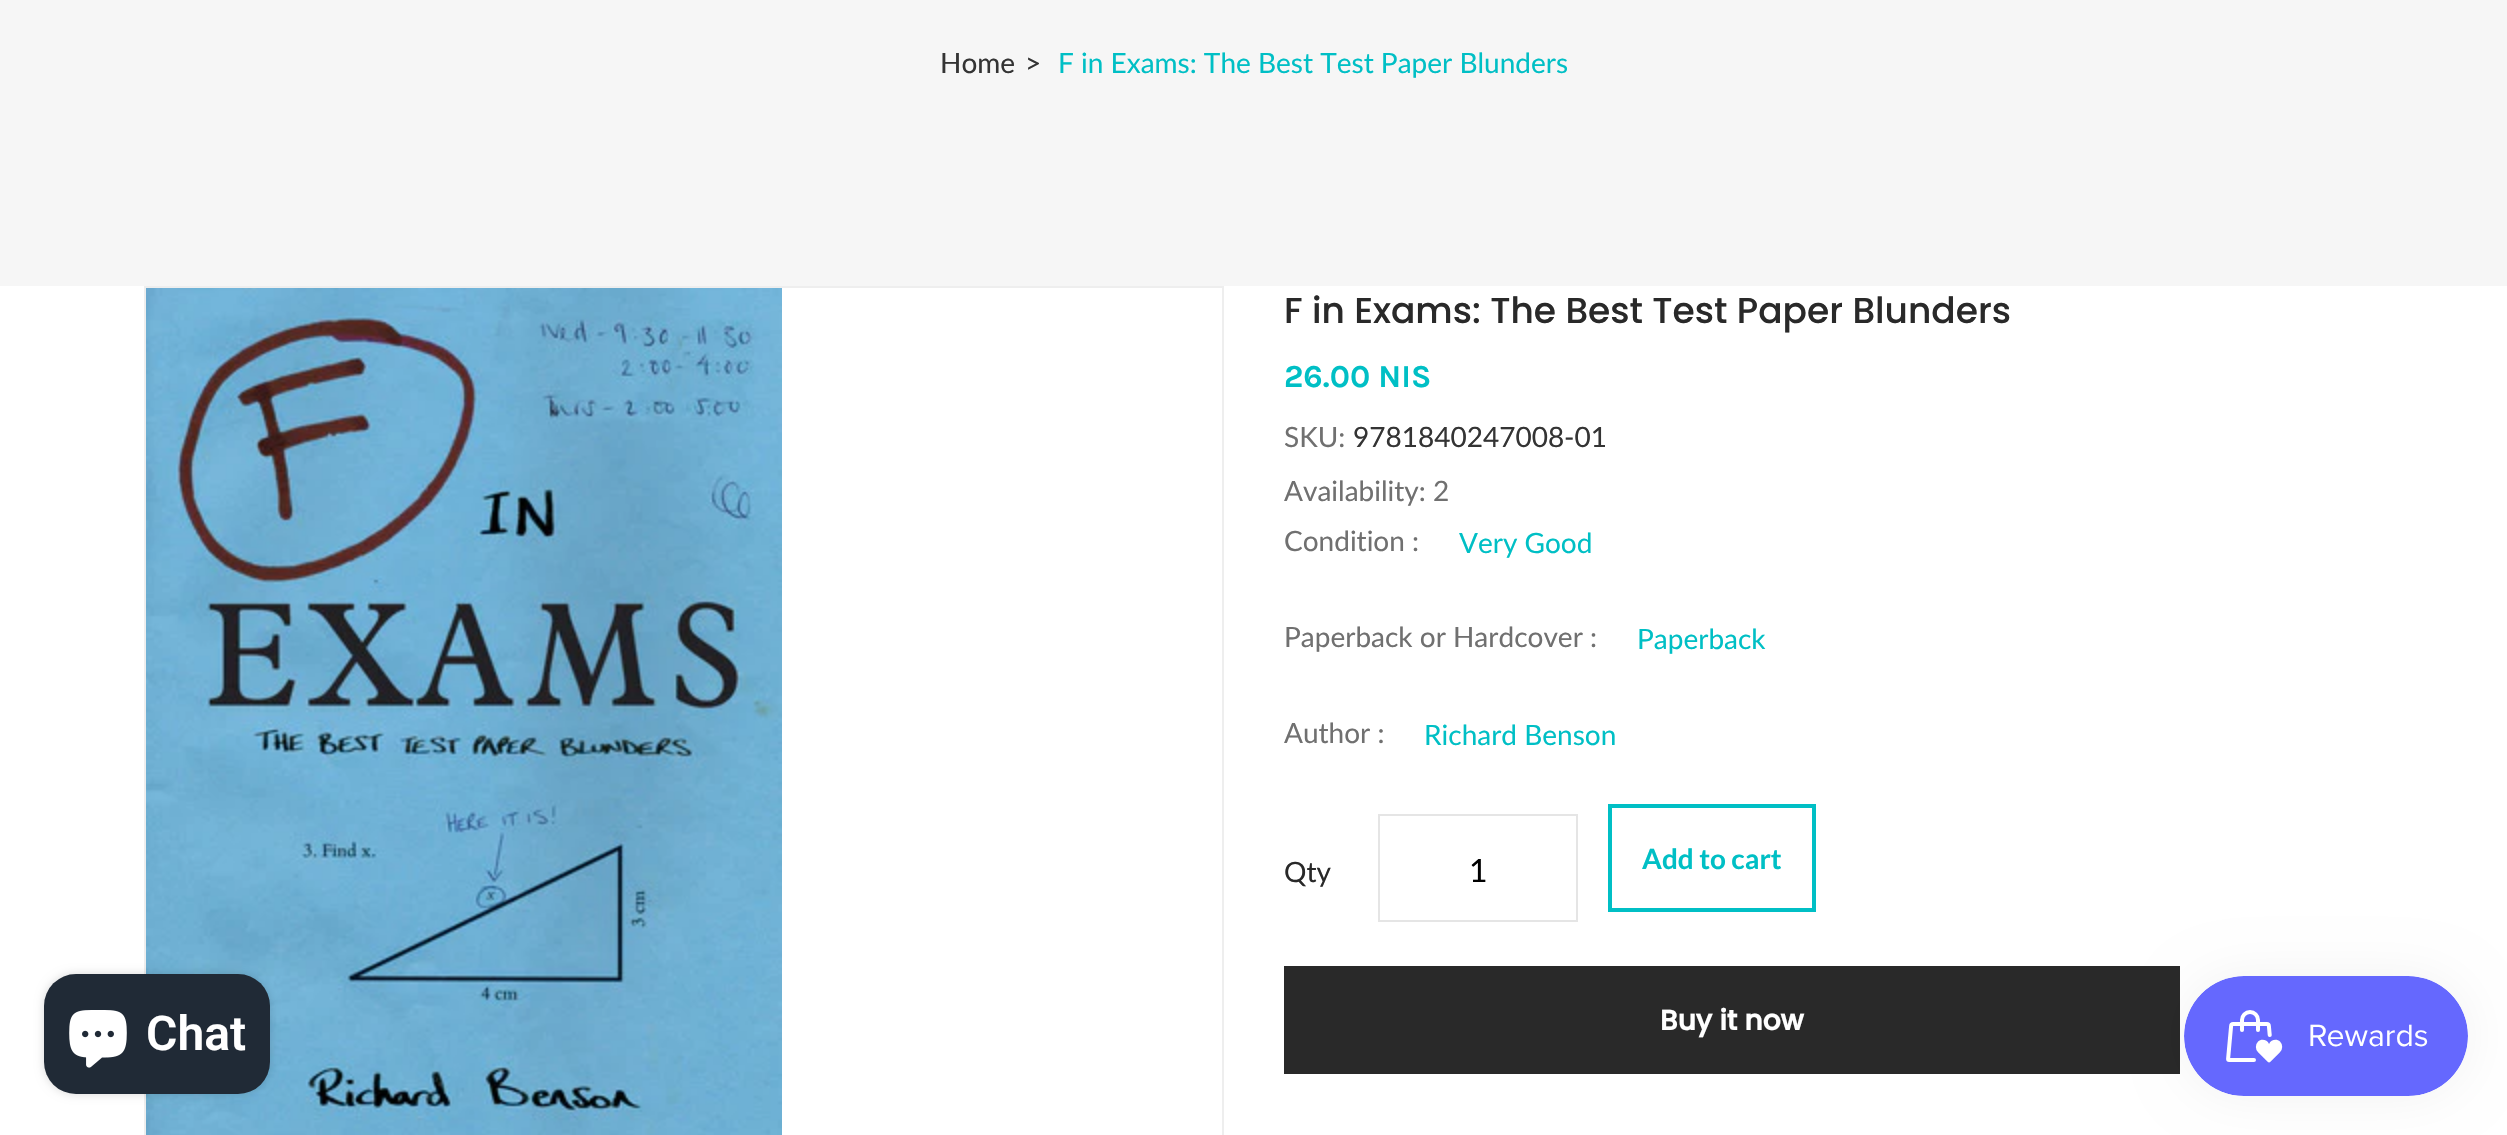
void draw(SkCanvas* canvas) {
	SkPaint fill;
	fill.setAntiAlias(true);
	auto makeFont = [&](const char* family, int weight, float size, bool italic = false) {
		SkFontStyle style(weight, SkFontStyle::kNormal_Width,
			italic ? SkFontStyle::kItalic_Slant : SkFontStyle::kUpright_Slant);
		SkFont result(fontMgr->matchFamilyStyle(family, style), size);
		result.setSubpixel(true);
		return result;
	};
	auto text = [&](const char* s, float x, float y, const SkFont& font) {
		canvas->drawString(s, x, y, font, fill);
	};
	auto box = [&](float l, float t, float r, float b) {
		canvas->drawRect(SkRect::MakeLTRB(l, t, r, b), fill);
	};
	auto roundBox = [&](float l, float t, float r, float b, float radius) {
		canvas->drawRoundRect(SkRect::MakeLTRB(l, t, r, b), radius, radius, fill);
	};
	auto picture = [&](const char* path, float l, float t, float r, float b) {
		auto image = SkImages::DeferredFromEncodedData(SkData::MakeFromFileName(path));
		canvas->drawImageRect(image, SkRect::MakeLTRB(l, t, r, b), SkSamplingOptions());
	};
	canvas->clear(0xFFFFFFFF);
	fill.setStyle(SkPaint::kStroke_Style);
	fill.setStrokeWidth(2);
	fill.setColor(0xFFEEEEEE);
	canvas->drawRect(SkRect::MakeLTRB(145, 287, 1223, 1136), fill);
	picture("image1.png", 146, 288, 782, 1135);
	fill.setStyle(SkPaint::kFill_Style);
	fill.setColor(0x26000000);
	fill.setMaskFilter(SkMaskFilter::MakeBlur(kNormal_SkBlurStyle, 5));
	canvas->drawRoundRect(SkRect::MakeLTRB(44, 974, 270, 1094), 32, 32, fill);
	fill.setMaskFilter(nullptr);
	fill.setColor(0xFF202A36);
	roundBox(44, 974, 270, 1094, 32);
	picture("image0.png", 69, 1010, 127, 1068);
	fill.setColor(0xFFF6F6F6);
	box(0, 0, 2507, 286);
	fill.setStyle(SkPaint::kStroke_Style);
	fill.setColor(0xFFE5E5E5);
	canvas->drawRect(SkRect::MakeLTRB(1379, 815, 1577, 921), fill);
	fill.setStrokeWidth(4);
	fill.setColor(0xFF00BFC5);
	canvas->drawRect(SkRect::MakeLTRB(1610, 806, 1814, 910), fill);
	fill.setStyle(SkPaint::kFill_Style);
	fill.setColor(0xFF292929);
	box(1284, 966, 2180, 1074);
	fill.setColor(0x0D000000);
	fill.setMaskFilter(SkMaskFilter::MakeBlur(kNormal_SkBlurStyle, 25));
	canvas->drawRoundRect(SkRect::MakeLTRB(2184, 976, 2468, 1096), 60, 60, fill);
	fill.setMaskFilter(nullptr);
	picture("image2.png", 2184, 976, 2468, 1096);
	auto font1 = makeFont("Roboto", 600, 48);
	fill.setColor(0xFFFFFFFF);
	text("Chat", 146, 1050, font1);
	auto font2 = makeFont("Lato", 400, 28);
	fill.setColor(0xFF343434);
	text("Home", 940, 73, font2);
	text(">", 1025, 73, font2);
	fill.setColor(0xFF00BFC5);
	text("F in Exams: The Best Test Paper Blunders", 1058, 73, font2);
	auto font3 = makeFont("Poppins", 500, 36);
	fill.setColor(0xFF292929);
	text("F in Exams: The Best Test Paper Blunders", 1284, 323, font3);
	auto font4 = makeFont("Karla", 700, 32);
	fill.setColor(0xFF00BFC5);
	text("26.00 NIS", 1284, 387, font4);
	fill.setColor(0xFF707070);
	text("SKU:", 1284, 447, font2);
	fill.setColor(0xFF343434);
	text("9781840247008-01", 1353, 447, font2);
	fill.setColor(0xFF707070);
	text("Availability: 2", 1284, 501, font2);
	text("Condition :", 1284, 551, font2);
	fill.setColor(0xFF00BFC5);
	text("Very Good", 1459, 553, font2);
	fill.setColor(0xFF707070);
	text("Paperback or Hardcover :", 1284, 647, font2);
	fill.setColor(0xFF00BFC5);
	text("Paperback", 1637, 649, font2);
	fill.setColor(0xFF707070);
	text("Author :", 1284, 743, font2);
	fill.setColor(0xFF00BFC5);
	text("Richard Benson", 1424, 745, font2);
	fill.setColor(0xFF292929);
	text("Qty", 1284, 882, font2);
	auto font5 = makeFont("Lato", 400, 32);
	fill.setColor(0xFF000000);
	text("1", 1469, 882, font5);
	auto font6 = makeFont("Lato", 700, 28);
	fill.setColor(0xFF00BFC5);
	text("Add to cart", 1642, 869, font6);
	auto font7 = makeFont("Poppins", 700, 28);
	fill.setColor(0xFFFFFFFF);
	text("Buy it now", 1660, 1030, font7);
}
